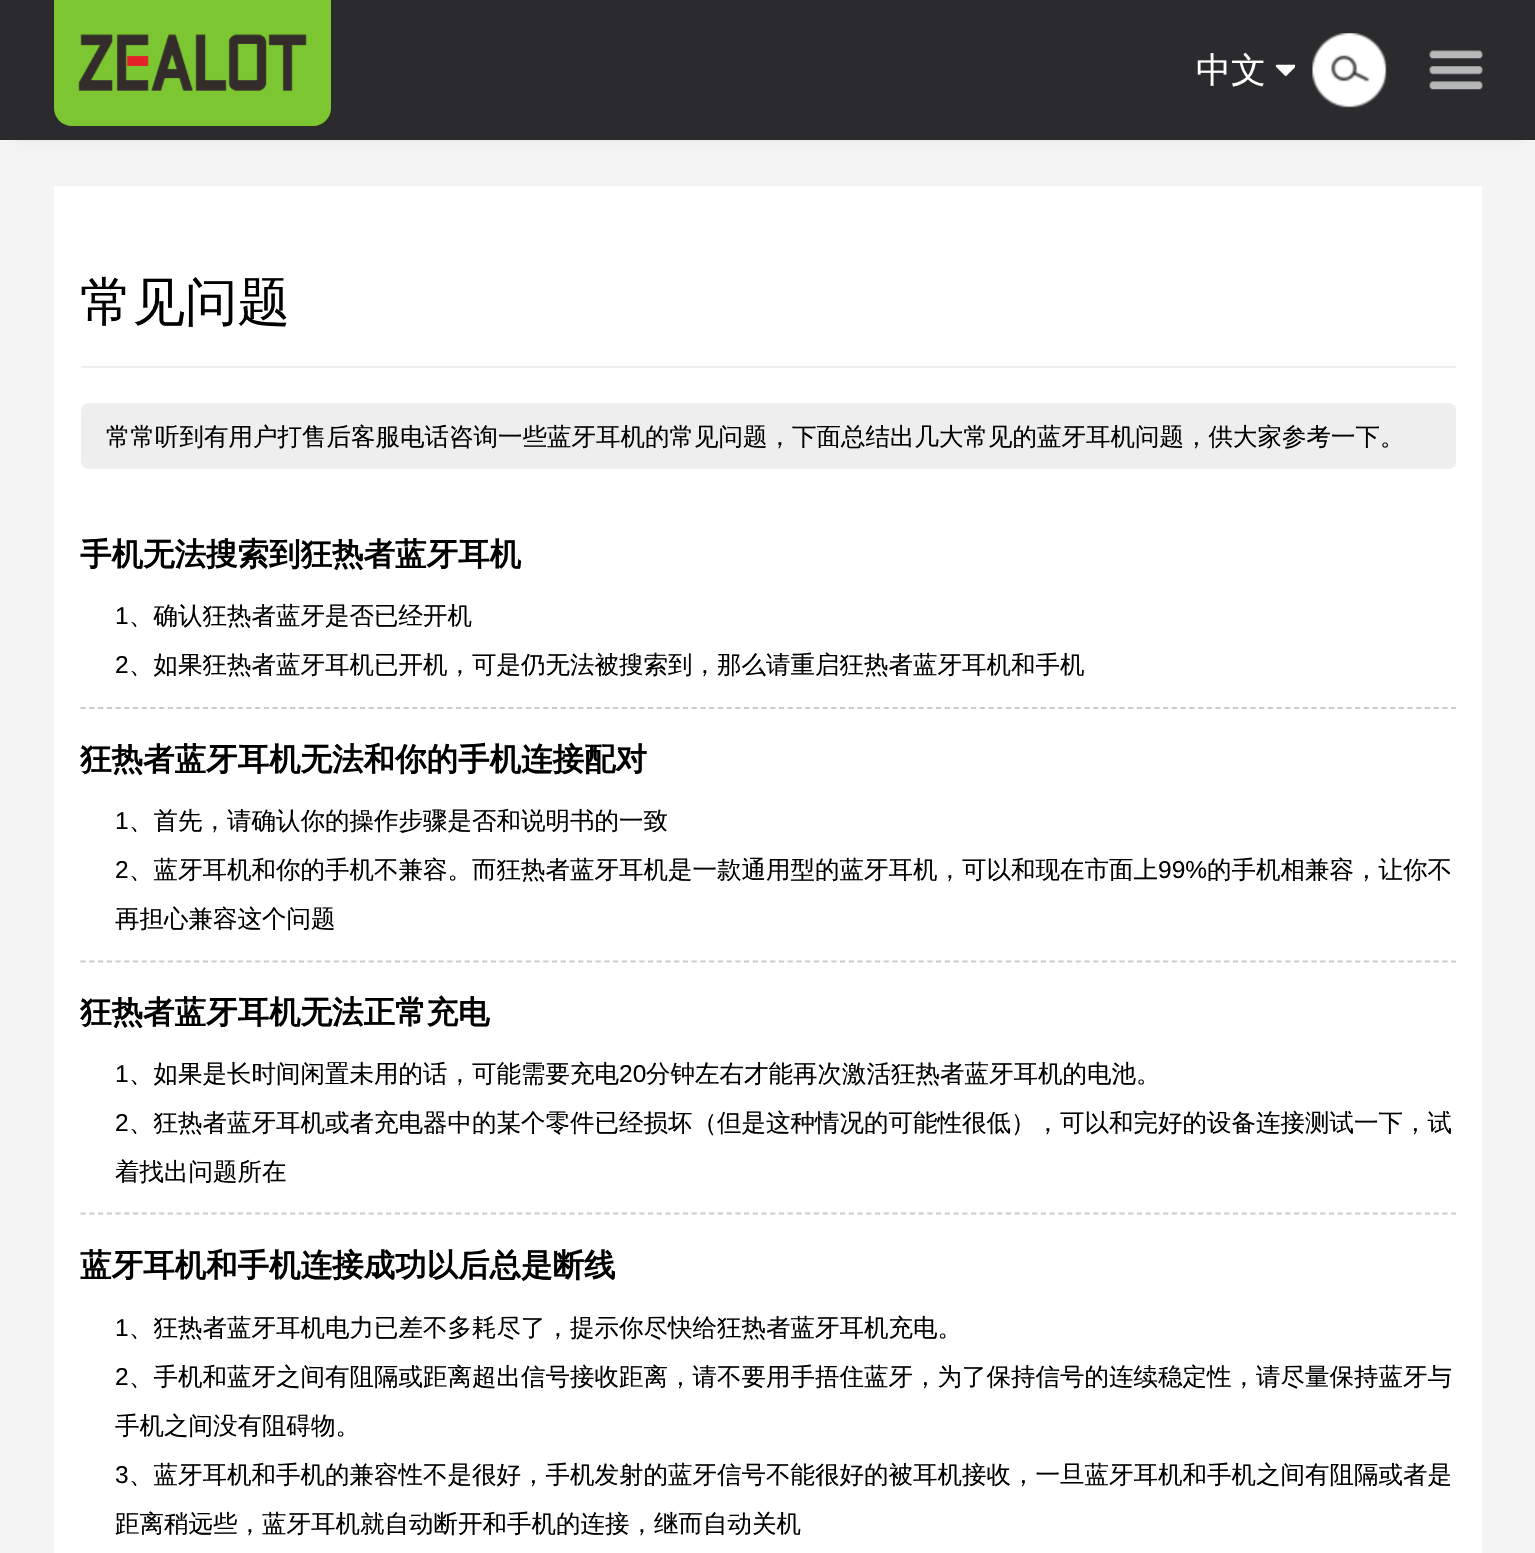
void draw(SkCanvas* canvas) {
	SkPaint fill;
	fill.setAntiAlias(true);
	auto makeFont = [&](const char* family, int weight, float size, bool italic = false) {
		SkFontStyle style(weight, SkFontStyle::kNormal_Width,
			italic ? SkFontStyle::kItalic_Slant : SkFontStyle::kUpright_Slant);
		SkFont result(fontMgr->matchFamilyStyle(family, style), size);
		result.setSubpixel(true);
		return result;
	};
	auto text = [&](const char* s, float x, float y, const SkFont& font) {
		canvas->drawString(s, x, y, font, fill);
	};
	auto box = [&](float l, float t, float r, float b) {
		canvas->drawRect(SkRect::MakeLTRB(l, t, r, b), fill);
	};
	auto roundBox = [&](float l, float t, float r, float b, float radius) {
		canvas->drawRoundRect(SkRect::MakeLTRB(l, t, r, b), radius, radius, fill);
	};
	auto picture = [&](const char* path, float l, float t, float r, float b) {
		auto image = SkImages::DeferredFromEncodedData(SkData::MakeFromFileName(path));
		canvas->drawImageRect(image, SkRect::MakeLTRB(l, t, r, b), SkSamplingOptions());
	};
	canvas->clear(0xFFF4F4F4);
	fill.setColor(0x1A000000);
	fill.setMaskFilter(SkMaskFilter::MakeBlur(kNormal_SkBlurStyle, 5));
	canvas->drawRect(SkRect::MakeLTRB(16, 30, 1521, 138), fill);
	fill.setMaskFilter(nullptr);
	fill.setColor(0xFF2B2B2D);
	box(0, 0, 1535, 140);
	fill.setColor(0xFF7CC731);
	canvas->drawPath(SkPathBuilder().moveTo(54, 0).lineTo(331, 0).lineTo(331, 108).cubicTo(331, 118, 323, 126, 313, 126).lineTo(72, 126).cubicTo(62, 126, 54, 118, 54, 108).close().detach(), fill);
	picture("image0.png", 78, 34, 307, 91);
	picture("image1.png", 1275, 64, 1295, 76);
	picture("image2.png", 1312, 33, 1387, 108);
	picture("image3.png", 1429, 50, 1483, 90);
	fill.setColor(0xFFFFFFFF);
	box(54, 186, 1482, 1553);
	fill.setColor(0xFFEEEEEE);
	box(81, 366, 1456, 368);
	roundBox(81, 403, 1456, 469, 7);
	fill.setStyle(SkPaint::kStroke_Style);
	fill.setStrokeWidth(1.8f);
	fill.setColor(0xFFCCCCCC);
	fill.setPathEffect(SkDashPathEffect::Make({{5.25f, 3.48f}}, 0));
	canvas->drawPath(SkPathBuilder().moveTo(80.5f, 708).lineTo(1456, 708).detach(), fill);
	fill.setPathEffect(nullptr);
	fill.setPathEffect(SkDashPathEffect::Make({{5.25f, 3.48f}}, 0));
	canvas->drawPath(SkPathBuilder().moveTo(80.5f, 961.5f).lineTo(1456, 961.5f).detach(), fill);
	fill.setPathEffect(nullptr);
	fill.setPathEffect(SkDashPathEffect::Make({{5.25f, 3.48f}}, 0));
	canvas->drawPath(SkPathBuilder().moveTo(80.5f, 1213.5f).lineTo(1456, 1213.5f).detach(), fill);
	fill.setPathEffect(nullptr);
	auto font1 = makeFont("WenQuanYi Zen Hei", 500, 35);
	fill.setStyle(SkPaint::kFill_Style);
	fill.setColor(0xFFFFFFFF);
	text("中文", 1196, 82, font1);
	auto font2 = makeFont("WenQuanYi Zen Hei", 500, 52.5f);
	fill.setColor(0xFF000000);
	text("常见问题", 80, 320, font2);
	auto font3 = makeFont("WenQuanYi Zen Hei", 500, 24.5f);
	text("常常听到有用户打售后客服电话咨询一些蓝牙耳机的常见问题，下面总结出几大常见的蓝牙耳机问题，供大家参考一下。", 106, 445, font3);
	auto font4 = makeFont("WenQuanYi Zen Hei", 700, 31.5f);
	text("手机无法搜索到狂热者蓝牙耳机", 80, 565, font4);
	auto font5 = makeFont("Liberation Sans", 400, 24.5f);
	text("1", 115, 624, font5);
	text("、确认狂热者蓝牙是否已经开机", 129, 624, font3);
	text("2", 115, 673, font5);
	text("、如果狂热者蓝牙耳机已开机，可是仍无法被搜索到，那么请重启狂热者蓝牙耳机和手机", 129, 673, font3);
	text("狂热者蓝牙耳机无法和你的手机连接配对", 80, 770, font4);
	text("1", 115, 829, font5);
	text("、首先，请确认你的操作步骤是否和说明书的一致", 129, 829, font3);
	text("2", 115, 878, font5);
	text("、蓝牙耳机和你的手机不兼容。而狂热者蓝牙耳机是一款通用型的蓝牙耳机，可以和现在市面上", 129, 878, font3);
	text("99%", 1158, 878, font5);
	text("的手机相兼容，让你不", 1207, 878, font3);
	text("再担心兼容这个问题", 115, 927, font3);
	text("狂热者蓝牙耳机无法正常充电", 80, 1023, font4);
	text("1", 115, 1082, font5);
	text("、如果是长时间闲置未用的话，可能需要充电", 129, 1082, font3);
	text("20", 619, 1082, font5);
	text("分钟左右才能再次激活狂热者蓝牙耳机的电池。", 646, 1082, font3);
	text("2", 115, 1131, font5);
	text("、狂热者蓝牙耳机或者充电器中的某个零件已经损坏（但是这种情况的可能性很低），可以和完好的设备连接测试一下，试", 129, 1131, font3);
	text("着找出问题所在", 115, 1180, font3);
	text("蓝牙耳机和手机连接成功以后总是断线", 80, 1276, font4);
	text("1", 115, 1336, font5);
	text("、狂热者蓝牙耳机电力已差不多耗尽了，提示你尽快给狂热者蓝牙耳机充电。", 129, 1336, font3);
	text("2", 115, 1385, font5);
	text("、手机和蓝牙之间有阻隔或距离超出信号接收距离，请不要用手捂住蓝牙，为了保持信号的连续稳定性，请尽量保持蓝牙与", 129, 1385, font3);
	text("手机之间没有阻碍物。", 115, 1434, font3);
	text("3", 115, 1483, font5);
	text("、蓝牙耳机和手机的兼容性不是很好，手机发射的蓝牙信号不能很好的被耳机接收，一旦蓝牙耳机和手机之间有阻隔或者是", 129, 1483, font3);
	text("距离稍远些，蓝牙耳机就自动断开和手机的连接，继而自动关机", 115, 1532, font3);
}
